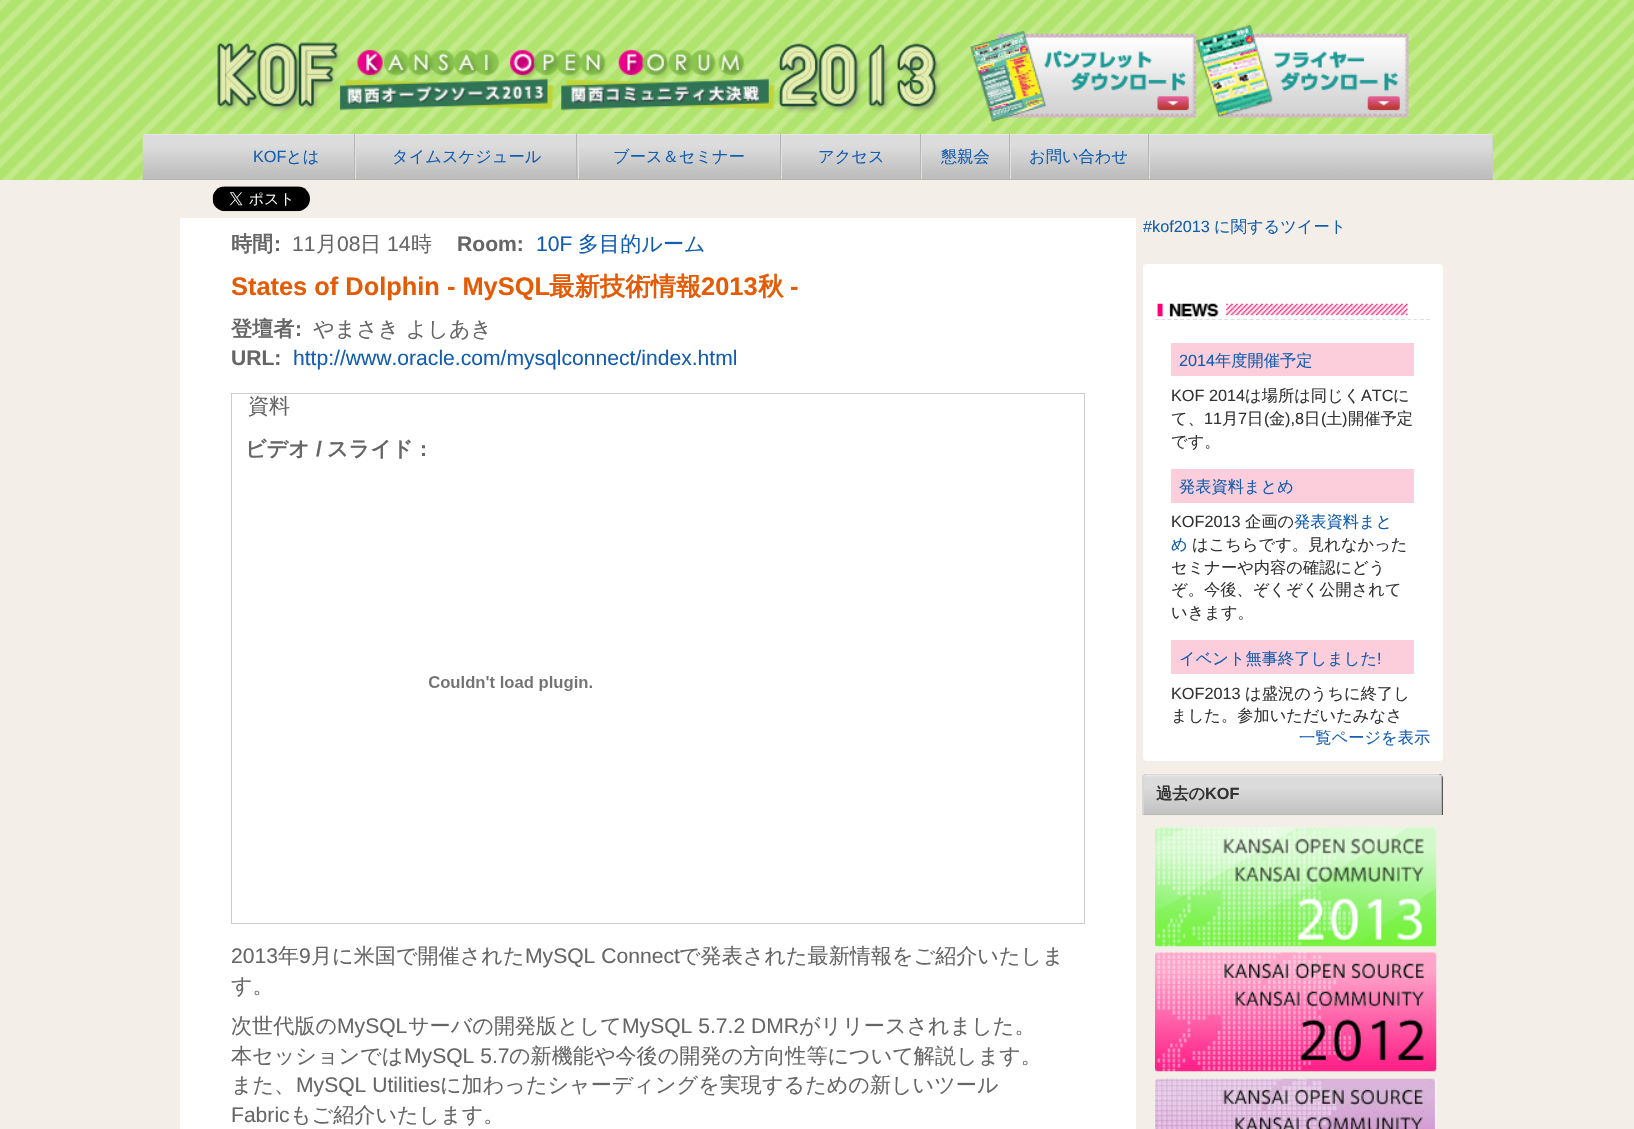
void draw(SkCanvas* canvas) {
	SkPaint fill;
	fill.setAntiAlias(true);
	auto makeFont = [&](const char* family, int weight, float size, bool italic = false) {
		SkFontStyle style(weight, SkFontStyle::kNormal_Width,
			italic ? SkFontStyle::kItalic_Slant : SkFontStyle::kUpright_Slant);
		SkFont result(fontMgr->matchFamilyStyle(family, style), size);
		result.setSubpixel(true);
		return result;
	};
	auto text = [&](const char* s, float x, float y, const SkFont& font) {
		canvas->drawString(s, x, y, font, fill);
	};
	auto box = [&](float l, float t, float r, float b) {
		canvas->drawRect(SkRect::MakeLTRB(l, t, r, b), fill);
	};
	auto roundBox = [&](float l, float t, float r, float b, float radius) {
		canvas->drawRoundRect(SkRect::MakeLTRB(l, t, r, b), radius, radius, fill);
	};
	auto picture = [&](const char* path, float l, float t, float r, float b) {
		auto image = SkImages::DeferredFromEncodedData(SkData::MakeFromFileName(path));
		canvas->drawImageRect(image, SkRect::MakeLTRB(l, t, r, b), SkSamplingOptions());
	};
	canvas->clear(0xFFF3EFE8);
	picture("image0.png", 0, 0, 1634, 180);
	picture("image1.png", 217, 42, 941, 113);
	picture("image2.png", 970, 31, 1197, 122);
	picture("image3.png", 1196, 25, 1409, 118);
	fill.setColor(0xFFCCCCCA);
	canvas->drawPath(SkPathBuilder().moveTo(147, 134).lineTo(1489, 134).cubicTo(1491, 134, 1493, 136, 1493, 138).lineTo(1493, 180).lineTo(143, 180).lineTo(143, 138).cubicTo(143, 136, 145, 134, 147, 134).close().detach(), fill);
	picture("image4.png", 142, 133, 1493, 180);
	fill.setColor(0xFFB5B5B4);
	box(143, 179, 1493, 180);
	fill.setColor(0xFFE1E1E1);
	box(1149, 134, 1150, 179);
	fill.setColor(0xFFB5B5B4);
	box(354, 134, 355, 179);
	box(576, 134, 577, 179);
	fill.setColor(0xFFE1E1E1);
	box(355, 134, 356, 179);
	fill.setColor(0xFFB5B5B4);
	box(780, 134, 781, 179);
	fill.setColor(0xFFE1E1E1);
	box(578, 134, 579, 179);
	fill.setColor(0xFFB5B5B4);
	box(920, 134, 921, 179);
	fill.setColor(0xFFE1E1E1);
	box(781, 134, 782, 179);
	fill.setColor(0xFFB5B5B4);
	box(1009, 134, 1010, 179);
	fill.setColor(0xFFE1E1E1);
	box(921, 134, 922, 179);
	fill.setColor(0xFFB5B5B4);
	box(1148, 134, 1149, 179);
	fill.setColor(0xFFE1E1E1);
	box(1010, 134, 1011, 179);
	picture("image5.png", 212, 186, 310, 212);
	fill.setColor(0xFFFFFFFF);
	box(180, 218, 1136, 1129);
	fill.setStyle(SkPaint::kStroke_Style);
	fill.setStrokeWidth(1);
	fill.setColor(0xFFCCCCCC);
	canvas->drawRect(SkRect::MakeLTRB(231.5f, 393.5f, 1084.5f, 923.5f), fill);
	picture("image6.png", 429, 676, 592, 691);
	fill.setStyle(SkPaint::kFill_Style);
	fill.setColor(0xFFFFFFFF);
	roundBox(1143, 264, 1443, 761, 4);
	picture("image7.png", 1157, 303, 1408, 317);
	fill.setStyle(SkPaint::kStroke_Style);
	fill.setStrokeWidth(1.2f);
	fill.setColor(0xFFDDDDDD);
	fill.setPathEffect(SkDashPathEffect::Make({{3.75f, 2.56f}}, 0));
	canvas->drawPath(SkPathBuilder().moveTo(1155, 319.5f).lineTo(1430, 319.5f).detach(), fill);
	fill.setPathEffect(nullptr);
	fill.setStyle(SkPaint::kFill_Style);
	fill.setColor(0xFFFCCEDB);
	box(1171, 343, 1414, 376);
	box(1171, 469, 1414, 503);
	box(1171, 640, 1414, 674);
	fill.setColor(0xFF2C2C2C);
	canvas->drawPath(SkPathBuilder().moveTo(1147, 774).lineTo(1439, 774).cubicTo(1441, 774, 1443, 776, 1443, 778).lineTo(1443, 815).lineTo(1143, 815).lineTo(1143, 778).cubicTo(1143, 776, 1145, 774, 1147, 774).close().detach(), fill);
	picture("image8.png", 1142, 775, 1443, 815);
	fill.setColor(0xFFD8D8D8);
	canvas->drawPath(SkPathBuilder().moveTo(1146, 774).lineTo(1143, 775).lineTo(1145, 776).lineTo(1146, 775).lineTo(1390, 775).lineTo(1439, 775).lineTo(1440, 776).lineTo(1441, 775).lineTo(1439, 774).close().detach(), fill);
	fill.setColor(0xFFB5B5B4);
	canvas->drawPath(SkPathBuilder().moveTo(1442, 814.5f).lineTo(1442, 778).cubicTo(1442, 776.5f, 1442, 775.5f, 1441.5f, 775).lineTo(1440.5f, 776).cubicTo(1441, 776.5f, 1441, 777, 1441, 778).lineTo(1441, 813.5f).close().detach(), fill);
	canvas->drawPath(SkPathBuilder().moveTo(1142, 815).lineTo(1442, 815).lineTo(1442, 814).lineTo(1441, 814).lineTo(1144, 814).close().detach(), fill);
	fill.setColor(0xFFD8D8D8);
	canvas->drawPath(SkPathBuilder().moveTo(1142, 815).lineTo(1144, 814).cubicTo(1144, 809, 1143, 778, 1145, 776).lineTo(1143, 775).lineTo(1142, 776).close().detach(), fill);
	picture("image9.png", 1155, 827, 1437, 947);
	picture("image10.png", 1155, 952, 1437, 1072);
	picture("image11.png", 1155, 1078, 1437, 1129);
	auto font1 = makeFont("Liberation Sans", 400, 16.25f);
	fill.setColor(0xFF135DB1);
	text("KOF", 253, 162, font1);
	auto font2 = makeFont("WenQuanYi Zen Hei", 500, 16.25f);
	text("とは", 286, 162, font2);
	text("タイムスケジュール", 392, 162, font2);
	text("ブース＆セミナー", 613, 162, font2);
	text("アクセス", 818, 162, font2);
	text("懇親会", 941, 162, font2);
	text("お問い合わせ", 1029, 162, font2);
	auto font3 = makeFont("WenQuanYi Zen Hei", 700, 21.1f);
	fill.setColor(0xFF666666);
	text("時間", 231, 251, font3);
	auto font4 = makeFont("Liberation Sans", 700, 21.1f);
	text(":", 274, 251, font4);
	auto font5 = makeFont("Liberation Sans", 400, 21.1f);
	text("11", 292, 251, font5);
	auto font6 = makeFont("WenQuanYi Zen Hei", 500, 21.1f);
	text("月", 316, 251, font6);
	text("08", 337, 251, font5);
	text("日", 360, 251, font6);
	text("14", 387, 251, font5);
	text("時", 411, 251, font6);
	text("Room:", 457, 251, font4);
	fill.setColor(0xFF135DB1);
	text("10F", 536, 251, font5);
	text("多目的ルーム", 578, 251, font6);
	auto font7 = makeFont("Liberation Sans", 700, 25.4f);
	fill.setColor(0xFFE45B05);
	text("States of Dolphin - MySQL", 231, 295, font7);
	auto font8 = makeFont("WenQuanYi Zen Hei", 700, 25.4f);
	text("最新技術情報", 549, 295, font8);
	text("2013", 701, 295, font7);
	text("秋", 758, 295, font8);
	text("-", 790, 295, font7);
	fill.setColor(0xFF666666);
	text("登壇者", 231, 336, font3);
	text(":", 295, 336, font4);
	text("やまさき よしあき", 313, 336, font6);
	text("URL:", 231, 365, font4);
	fill.setColor(0xFF135DB1);
	text("http://www.oracle.com/mysqlconnect/index.html", 293, 365, font5);
	fill.setColor(0xFF666666);
	text("資料", 248, 413, font6);
	text("ビデオ", 245, 456, font3);
	text("/", 316, 456, font4);
	text("スライド", 327, 456, font3);
	text(":", 420, 456, font4);
	text("2013", 231, 963, font5);
	text("年", 278, 963, font6);
	text("9", 299, 963, font5);
	text("月に米国で開催された", 311, 963, font6);
	text("MySQL Connect", 525, 963, font5);
	text("で発表された最新情報をご紹介いたしま", 679, 963, font6);
	text("す。", 231, 993, font6);
	text("次世代版の", 231, 1033, font6);
	text("MySQL", 337, 1033, font5);
	text("サーバの開発版として", 408, 1033, font6);
	text("MySQL 5.7.2 DMR", 622, 1033, font5);
	text("がリリースされました。", 799, 1033, font6);
	text("本セッションでは", 231, 1063, font6);
	text("MySQL 5.7", 404, 1063, font5);
	text("の新機能や今後の開発の方向性等について解説します。", 509, 1063, font6);
	text("また、", 231, 1092, font6);
	text("MySQL Utilities", 296, 1092, font5);
	text("に加わったシャーディングを実現するための新しいツール", 440, 1092, font6);
	text("Fabric", 231, 1122, font5);
	text("もご紹介いたします。", 290, 1122, font6);
	fill.setColor(0xFF135DB1);
	text("#kof2013", 1143, 232, font1);
	text("に関するツイート", 1214, 232, font2);
	text("2014", 1179, 366, font1);
	text("年度開催予定", 1215, 366, font2);
	fill.setColor(0xFF333333);
	text("KOF 2014", 1171, 401, font1);
	text("は場所は同じく", 1245, 401, font2);
	text("ATC", 1361, 401, font1);
	text("に", 1393, 401, font2);
	text("て、", 1171, 424, font2);
	text("11", 1204, 424, font1);
	text("月", 1222, 424, font2);
	text("7", 1238, 424, font1);
	text("日", 1247, 424, font2);
	text("(", 1264, 424, font1);
	text("金", 1269, 424, font2);
	text("),8", 1285, 424, font1);
	text("日", 1304, 424, font2);
	text("(", 1321, 424, font1);
	text("土", 1326, 424, font2);
	text(")", 1342, 424, font1);
	text("開催予定", 1348, 424, font2);
	text("です。", 1171, 447, font2);
	fill.setColor(0xFF135DB1);
	text("発表資料まとめ", 1179, 492, font2);
	fill.setColor(0xFF333333);
	text("KOF2013", 1171, 527, font1);
	text("企画の", 1245, 527, font2);
	fill.setColor(0xFF135DB1);
	text("発表資料まと", 1294, 527, font2);
	text("め", 1171, 550, font2);
	fill.setColor(0xFF333333);
	text("はこちらです。見れなかった", 1192, 550, font2);
	text("セミナーや内容の確認にどう", 1171, 573, font2);
	text("ぞ。今後、ぞくぞく公開されて", 1171, 595, font2);
	text("いきます。", 1171, 618, font2);
	fill.setColor(0xFF135DB1);
	text("イベント無事終了しました", 1179, 664, font2);
	text("!", 1377, 664, font1);
	fill.setColor(0xFF333333);
	text("KOF2013", 1171, 699, font1);
	text("は盛況のうちに終了し", 1245, 699, font2);
	text("ました。参加いただいたみなさ", 1171, 721, font2);
	fill.setColor(0xFF135DB1);
	text("一覧ページを表示", 1299, 743, font2);
	auto font9 = makeFont("WenQuanYi Zen Hei", 700, 16.25f);
	fill.setColor(0xFF333333);
	text("過去の", 1156, 799, font9);
	auto font10 = makeFont("Liberation Sans", 700, 16.25f);
	text("KOF", 1205, 799, font10);
}
